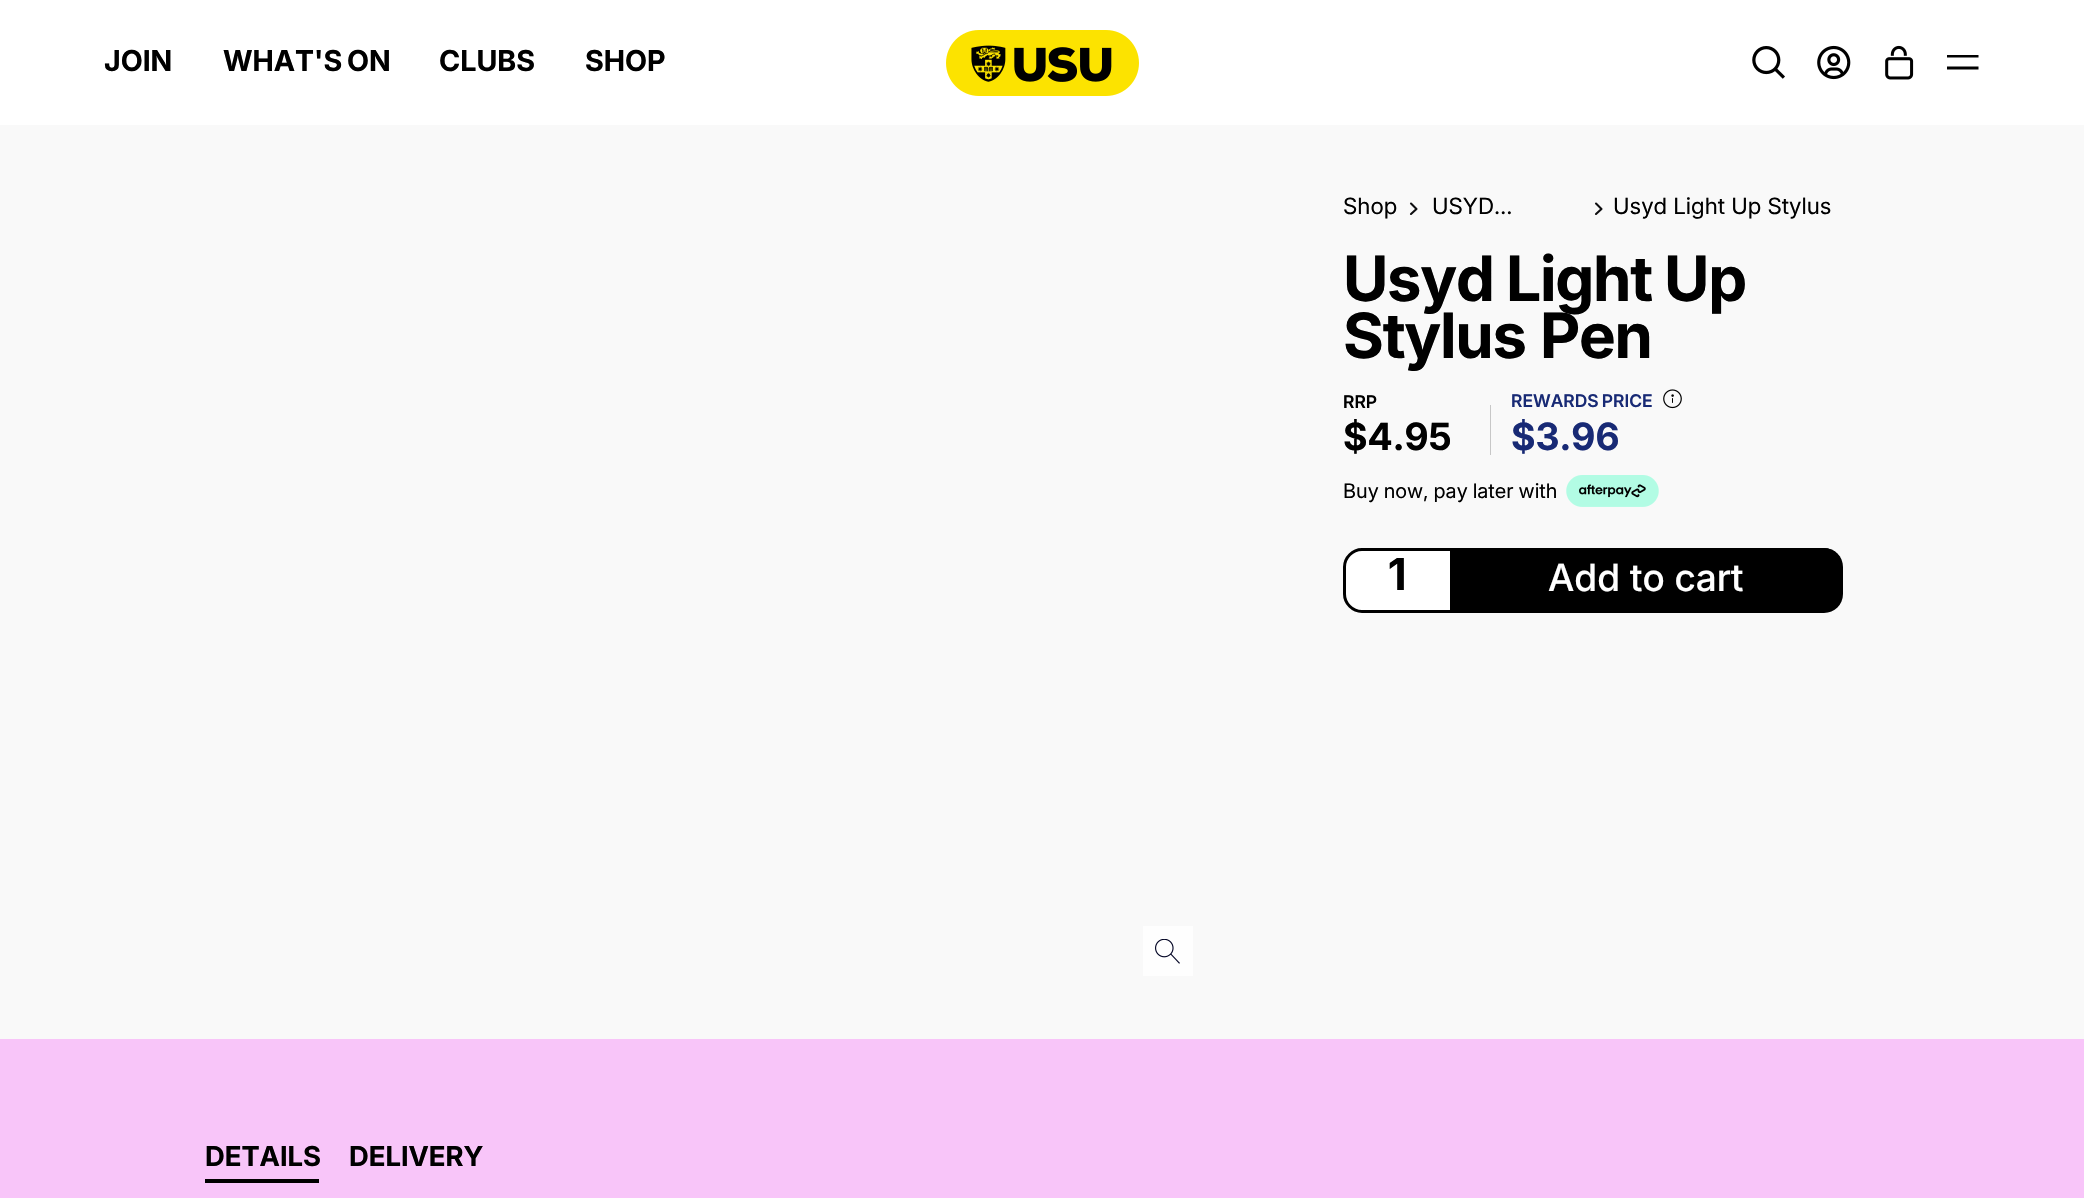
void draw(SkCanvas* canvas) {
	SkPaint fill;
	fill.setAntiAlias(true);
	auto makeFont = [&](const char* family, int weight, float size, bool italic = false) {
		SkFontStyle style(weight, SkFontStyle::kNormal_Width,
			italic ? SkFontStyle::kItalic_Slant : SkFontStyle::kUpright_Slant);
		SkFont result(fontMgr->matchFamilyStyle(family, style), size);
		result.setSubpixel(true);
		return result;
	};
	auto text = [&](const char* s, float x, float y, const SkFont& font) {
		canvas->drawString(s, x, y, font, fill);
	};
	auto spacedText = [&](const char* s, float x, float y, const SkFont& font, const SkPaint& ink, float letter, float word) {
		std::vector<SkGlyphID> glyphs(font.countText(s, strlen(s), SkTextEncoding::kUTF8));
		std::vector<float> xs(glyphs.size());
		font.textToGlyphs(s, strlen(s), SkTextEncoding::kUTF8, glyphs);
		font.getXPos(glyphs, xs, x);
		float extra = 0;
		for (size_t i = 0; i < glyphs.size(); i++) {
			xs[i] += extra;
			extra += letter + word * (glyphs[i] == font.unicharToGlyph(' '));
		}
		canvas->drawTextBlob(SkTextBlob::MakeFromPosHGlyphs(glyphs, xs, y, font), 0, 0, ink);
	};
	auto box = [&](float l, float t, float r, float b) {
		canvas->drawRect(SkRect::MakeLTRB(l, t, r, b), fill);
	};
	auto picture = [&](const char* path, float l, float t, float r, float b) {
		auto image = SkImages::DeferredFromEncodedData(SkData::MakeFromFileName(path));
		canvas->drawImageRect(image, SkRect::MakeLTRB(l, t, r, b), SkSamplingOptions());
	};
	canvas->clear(0xFFF9F9F9);
	fill.setColor(0xFFFFFFFF);
	box(0, 0, 2084, 125);
	picture("image0.png", 946, 30, 1139, 96);
	picture("image1.png", 1752, 46, 1785, 79);
	picture("image2.png", 1817, 45, 1851, 80);
	picture("image3.png", 1885, 45, 1914, 80);
	fill.setColor(0xFF000000);
	canvas->drawPath(SkPathBuilder().moveTo(1978.5f, 66.5f).lineTo(1978.5f, 69.5f).lineTo(1947, 69.5f).lineTo(1947, 66.5f).close().moveTo(1978.5f, 55).lineTo(1978.5f, 57.5f).lineTo(1947, 57.5f).lineTo(1947, 55).close().detach(), fill);
	fill.setStyle(SkPaint::kStroke_Style);
	fill.setStrokeWidth(2.1f);
	fill.setStrokeCap(SkPaint::kRound_Cap);
	fill.setStrokeJoin(SkPaint::kRound_Join);
	fill.setColor(0xFF0E0E10);
	canvas->drawPath(SkPathBuilder().moveTo(1411, 214).lineTo(1416.5f, 209).lineTo(1411, 203.5f).detach(), fill);
	canvas->drawPath(SkPathBuilder().moveTo(1596, 214).lineTo(1601.5f, 209).lineTo(1596, 203.5f).detach(), fill);
	picture("image4.png", 1663, 389, 1682, 409);
	fill.setStyle(SkPaint::kFill_Style);
	fill.setColor(0xFFC7C7C7);
	box(1490, 405, 1491, 455);
	picture("image5.png", 1566, 475, 1659, 507);
	fill.setColor(0xFF000000);
	canvas->drawPath(SkPathBuilder().moveTo(1453, 548).lineTo(1824, 548).cubicTo(1834.5f, 548, 1843, 556.5f, 1843, 567).lineTo(1843, 594).cubicTo(1843, 604.5f, 1834.5f, 613, 1824, 613).lineTo(1453, 613).close().detach(), fill);
	canvas->drawPath(SkPathBuilder(SkPathFillType::kEvenOdd).moveTo(1452, 548).lineTo(1824, 548).cubicTo(1834, 548, 1842, 556, 1842, 566).lineTo(1842, 594).cubicTo(1842, 604, 1834, 612, 1824, 612).lineTo(1452, 612).close().moveTo(1452, 550).lineTo(1824, 550).cubicTo(1833, 550, 1840, 557, 1840, 566).lineTo(1840, 594).cubicTo(1840, 603, 1833, 610, 1824, 610).lineTo(1452, 610).close().detach(), fill);
	fill.setColor(0xFFFFFFFF);
	canvas->drawPath(SkPathBuilder().moveTo(1362, 549.5f).lineTo(1451.5f, 549.5f).lineTo(1451.5f, 611.5f).lineTo(1362, 611.5f).cubicTo(1352.5f, 611.5f, 1344.5f, 603.5f, 1344.5f, 594).lineTo(1344.5f, 567).cubicTo(1344.5f, 557.5f, 1352.5f, 549.5f, 1362, 549.5f).close().detach(), fill);
	fill.setStyle(SkPaint::kStroke_Style);
	fill.setStrokeWidth(3);
	fill.setStrokeCap(SkPaint::kButt_Cap);
	fill.setStrokeJoin(SkPaint::kMiter_Join);
	fill.setColor(0xFF000000);
	canvas->drawPath(SkPathBuilder().moveTo(1362, 549.5f).lineTo(1451.5f, 549.5f).lineTo(1451.5f, 611.5f).lineTo(1362, 611.5f).cubicTo(1352.5f, 611.5f, 1344.5f, 603.5f, 1344.5f, 594).lineTo(1344.5f, 567).cubicTo(1344.5f, 557.5f, 1352.5f, 549.5f, 1362, 549.5f).close().detach(), fill);
	fill.setStyle(SkPaint::kFill_Style);
	fill.setColor(0xFFFEFEFE);
	box(1143, 926, 1193, 976);
	picture("image6.png", 1155, 939, 1180, 964);
	fill.setColor(0xFFF8C5F9);
	box(0, 1039, 2084, 1198);
	fill.setColor(0xFF000000);
	box(205, 1179, 319, 1183);
	auto font1 = makeFont("Inter", 700, 28.75f);
	text("JOIN", 104, 71, font1);
	spacedText("WHAT'S ON", 223, 71, font1, fill, 0, -2);
	text("CLUBS", 439, 71, font1);
	text("SHOP", 585, 71, font1);
	auto font2 = makeFont("Inter", 400, 22.5f);
	text("Shop", 1343, 214, font2);
	text("USYD…", 1432, 214, font2);
	text("Usyd Light Up Stylus", 1613, 214, font2);
	auto font3 = makeFont("Inter", 700, 62.5f);
	spacedText("Usyd Light Up", 1343, 301, font3, fill, -1.25f, -1);
	spacedText("Stylus Pen", 1343, 358, font3, fill, -1.25f, 1);
	auto font4 = makeFont("Inter", 600, 17.5f);
	text("RRP", 1343, 408, font4);
	fill.setColor(0xFF182A75);
	spacedText("REWARDS PRICE", 1511, 407, font4, fill, 0, -1);
	auto font5 = makeFont("Inter", 700, 37.5f);
	text("$3.96", 1511, 450, font5);
	fill.setColor(0xFF000000);
	text("$4.95", 1343, 450, font5);
	auto font6 = makeFont("Inter", 400, 20);
	spacedText("Buy now, pay later with", 1343, 498, font6, fill, 0, -0.5f);
	auto font7 = makeFont("Inter", 700, 44);
	text("1", 1388, 590, font7);
	auto font8 = makeFont("Inter", 500, 37.5f);
	fill.setColor(0xFFFFFFFF);
	text("Add to cart", 1548, 591, font8);
	auto font9 = makeFont("Inter", 700, 27.5f);
	fill.setColor(0xFF000000);
	text("DETAILS", 205, 1166, font9);
	text("DELIVERY", 349, 1166, font9);
}
